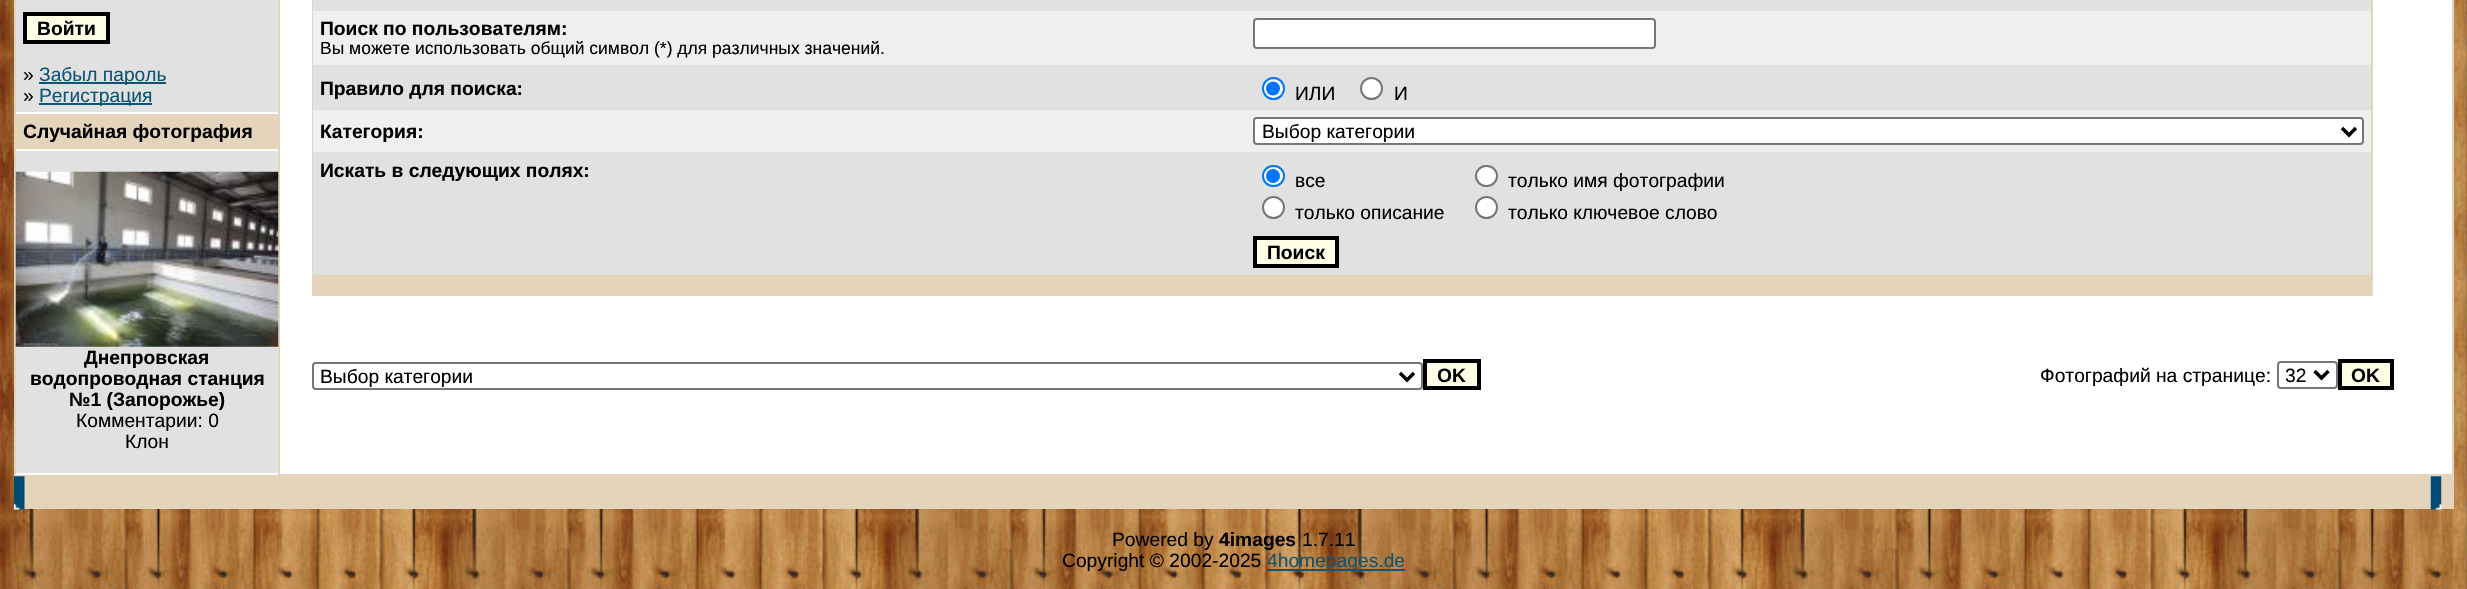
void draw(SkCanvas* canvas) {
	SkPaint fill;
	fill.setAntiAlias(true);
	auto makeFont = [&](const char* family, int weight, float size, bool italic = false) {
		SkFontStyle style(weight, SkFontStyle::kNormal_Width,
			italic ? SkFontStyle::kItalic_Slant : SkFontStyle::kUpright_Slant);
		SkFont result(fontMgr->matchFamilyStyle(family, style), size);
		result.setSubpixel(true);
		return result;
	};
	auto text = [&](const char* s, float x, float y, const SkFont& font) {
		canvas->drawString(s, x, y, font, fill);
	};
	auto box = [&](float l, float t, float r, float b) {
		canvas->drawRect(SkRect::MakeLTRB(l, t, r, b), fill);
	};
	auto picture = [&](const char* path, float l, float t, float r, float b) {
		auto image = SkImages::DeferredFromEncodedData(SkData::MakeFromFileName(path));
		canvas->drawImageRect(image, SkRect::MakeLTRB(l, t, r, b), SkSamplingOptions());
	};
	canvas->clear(0xFFFFFFFF);
	picture("image0.png", 0, 0, 2467, 589);
	fill.setColor(0xFFE4D4BC);
	box(14, 0, 2454, 509);
	fill.setColor(0xFFFFFFFF);
	box(280, 0, 2452, 474);
	fill.setColor(0xFFE1E1E1);
	box(16, 0, 278, 112);
	fill.setColor(0xFFFFFFE8);
	canvas->drawRect(SkRect::MakeLTRB(25, 14, 108, 42), fill);
	fill.setStyle(SkPaint::kStroke_Style);
	fill.setStrokeWidth(4);
	fill.setColor(0xFF000000);
	canvas->drawRect(SkRect::MakeLTRB(25, 14, 108, 42), fill);
	fill.setStyle(SkPaint::kFill_Style);
	fill.setColor(0xFF0F5475);
	box(39, 82, 166, 84);
	box(39, 103, 152, 105);
	fill.setColor(0xFFFFFFFF);
	box(16, 112, 278, 114);
	box(16, 149, 278, 151);
	fill.setColor(0xFFE1E1E1);
	box(16, 151, 278, 473);
	picture("image1.png", 15, 171, 279, 347);
	fill.setColor(0xFFFFFFFF);
	box(16, 473, 278, 475);
	fill.setColor(0xFFE4D4BC);
	box(312, 0, 2373, 296);
	fill.setColor(0xFFE1E1E1);
	box(313, 0, 2371, 11);
	fill.setColor(0xFFEFEFEF);
	box(313, 11, 2371, 65);
	fill.setColor(0xFFFFFFFF);
	canvas->drawRoundRect(SkRect::MakeLTRB(1254, 19, 1655, 48), 3, 3, fill);
	fill.setStyle(SkPaint::kStroke_Style);
	fill.setStrokeWidth(2);
	fill.setColor(0xFF767676);
	canvas->drawRoundRect(SkRect::MakeLTRB(1254, 19, 1655, 48), 3, 3, fill);
	fill.setStyle(SkPaint::kFill_Style);
	fill.setColor(0xFFE1E1E1);
	box(313, 65, 2371, 110);
	fill.setColor(0xFFFFFFFF);
	canvas->drawCircle(1273.5f, 88.5f, 10.5f, fill);
	fill.setStyle(SkPaint::kStroke_Style);
	fill.setColor(0xFF0075FF);
	canvas->drawCircle(1273.5f, 88.5f, 10.5f, fill);
	fill.setStyle(SkPaint::kFill_Style);
	canvas->drawCircle(1273, 88.5f, 7, fill);
	fill.setColor(0xFFFFFFFF);
	canvas->drawCircle(1371.5f, 88.5f, 10.5f, fill);
	fill.setStyle(SkPaint::kStroke_Style);
	fill.setColor(0xFF767676);
	canvas->drawCircle(1371.5f, 88.5f, 10.5f, fill);
	fill.setStyle(SkPaint::kFill_Style);
	fill.setColor(0xFFEFEFEF);
	box(313, 110, 2371, 152);
	fill.setColor(0xFFFFFFFF);
	canvas->drawRoundRect(SkRect::MakeLTRB(1254, 118, 2363, 144), 3, 3, fill);
	fill.setStyle(SkPaint::kStroke_Style);
	fill.setColor(0xFF767676);
	canvas->drawRoundRect(SkRect::MakeLTRB(1254, 118, 2363, 144), 3, 3, fill);
	fill.setStrokeWidth(3.5f);
	fill.setColor(0xFF000000);
	canvas->drawPath(SkPathBuilder().moveTo(2342, 128).lineTo(2349, 135).lineTo(2356, 128).detach(), fill);
	fill.setStyle(SkPaint::kFill_Style);
	fill.setColor(0xFFE1E1E1);
	box(313, 152, 2371, 229);
	fill.setColor(0xFFFFFFFF);
	canvas->drawRoundRect(SkRect::MakeLTRB(1263, 166, 1284, 186), 10, 10, fill);
	fill.setStyle(SkPaint::kStroke_Style);
	fill.setStrokeWidth(2);
	fill.setColor(0xFF0075FF);
	canvas->drawRoundRect(SkRect::MakeLTRB(1263, 166, 1284, 186), 10, 10, fill);
	fill.setStyle(SkPaint::kFill_Style);
	canvas->drawCircle(1273, 176, 7, fill);
	fill.setColor(0xFFFFFFFF);
	canvas->drawRoundRect(SkRect::MakeLTRB(1476, 166, 1497, 186), 10, 10, fill);
	fill.setStyle(SkPaint::kStroke_Style);
	fill.setColor(0xFF767676);
	canvas->drawRoundRect(SkRect::MakeLTRB(1476, 166, 1497, 186), 10, 10, fill);
	fill.setStyle(SkPaint::kFill_Style);
	fill.setColor(0xFFFFFFFF);
	canvas->drawCircle(1273.5f, 207.5f, 10.5f, fill);
	fill.setStyle(SkPaint::kStroke_Style);
	fill.setColor(0xFF767676);
	canvas->drawCircle(1273.5f, 207.5f, 10.5f, fill);
	fill.setStyle(SkPaint::kFill_Style);
	fill.setColor(0xFFFFFFFF);
	canvas->drawCircle(1486.5f, 207.5f, 10.5f, fill);
	fill.setStyle(SkPaint::kStroke_Style);
	fill.setColor(0xFF767676);
	canvas->drawCircle(1486.5f, 207.5f, 10.5f, fill);
	fill.setStyle(SkPaint::kFill_Style);
	fill.setColor(0xFFE1E1E1);
	box(313, 229, 2371, 275);
	fill.setColor(0xFFFFFFE8);
	canvas->drawRect(SkRect::MakeLTRB(1255, 238, 1337, 266), fill);
	fill.setStyle(SkPaint::kStroke_Style);
	fill.setStrokeWidth(4);
	fill.setColor(0xFF000000);
	canvas->drawRect(SkRect::MakeLTRB(1255, 238, 1337, 266), fill);
	fill.setStrokeWidth(2);
	fill.setColor(0xFF767676);
	canvas->drawRoundRect(SkRect::MakeLTRB(313, 363, 1422, 389), 3, 3, fill);
	fill.setStrokeWidth(3.5f);
	fill.setColor(0xFF000000);
	canvas->drawPath(SkPathBuilder().moveTo(1400, 373).lineTo(1407, 380).lineTo(1414, 373).detach(), fill);
	fill.setStyle(SkPaint::kFill_Style);
	fill.setColor(0xFFFFFFE8);
	canvas->drawRect(SkRect::MakeLTRB(1425, 361, 1479, 388), fill);
	fill.setStyle(SkPaint::kStroke_Style);
	fill.setStrokeWidth(4);
	fill.setColor(0xFF000000);
	canvas->drawRect(SkRect::MakeLTRB(1425, 361, 1479, 388), fill);
	fill.setStrokeWidth(2);
	fill.setColor(0xFF767676);
	canvas->drawRoundRect(SkRect::MakeLTRB(2278, 362, 2337, 388), 3, 3, fill);
	fill.setStrokeWidth(3.5f);
	fill.setColor(0xFF000000);
	canvas->drawPath(SkPathBuilder().moveTo(2314.5f, 371).lineTo(2321.5f, 378).lineTo(2328.5f, 371).detach(), fill);
	fill.setStyle(SkPaint::kFill_Style);
	fill.setColor(0xFFFFFFE8);
	canvas->drawRect(SkRect::MakeLTRB(2340, 361, 2392, 388), fill);
	fill.setStyle(SkPaint::kStroke_Style);
	fill.setStrokeWidth(4);
	fill.setColor(0xFF000000);
	canvas->drawRect(SkRect::MakeLTRB(2340, 361, 2392, 388), fill);
	picture("image2.png", 14, 476, 25, 510);
	picture("image3.png", 2430, 476, 2442, 510);
	fill.setStyle(SkPaint::kFill_Style);
	fill.setColor(0xFF0F5475);
	box(1267, 569, 1405, 571);
	auto font1 = makeFont("Liberation Sans", 700, 19.25f);
	fill.setColor(0xFF000000);
	text("Войти", 37, 35, font1);
	auto font2 = makeFont("Liberation Sans", 400, 19.25f);
	text("»", 23, 81, font2);
	fill.setColor(0xFF0F5475);
	text("Забыл пароль", 39, 81, font2);
	fill.setColor(0xFF000000);
	text("»", 23, 102, font2);
	fill.setColor(0xFF0F5475);
	text("Регистрация", 39, 102, font2);
	fill.setColor(0xFF000000);
	text("Случайная фотография", 23, 138, font1);
	text("Днепровская", 84, 364, font1);
	text("водопроводная станция", 30, 385, font1);
	text("№1 (Запорожье)", 69, 406, font1);
	text("Комментарии: 0", 76, 427, font2);
	text("Клон", 125, 448, font2);
	text("Поиск по пользователям:", 320, 35, font1);
	auto font3 = makeFont("Liberation Sans", 400, 17.5f);
	text("Вы можете использовать общий символ (*) для различных значений.", 320, 54, font3);
	text("Правило для поиска:", 320, 95, font1);
	text("ИЛИ", 1295, 100, font2);
	text("И", 1394, 100, font2);
	text("Категория:", 320, 138, font1);
	text("Выбор категории", 1262, 138, font2);
	text("Искать в следующих полях:", 320, 177, font1);
	text("все", 1295, 187, font2);
	text("только имя фотографии", 1508, 187, font2);
	text("только описание", 1295, 219, font2);
	text("только ключевое слово", 1508, 219, font2);
	text("Поиск", 1267, 259, font1);
	text("Выбор категории", 320, 383, font2);
	text("OK", 1437, 382, font1);
	text("Фотографий на странице:", 2040, 382, font2);
	canvas->save();
	canvas->clipRect(SkRect::MakeLTRB(2286, 362, 2308, 387));
	text("32", 2285, 382, font2);
	canvas->restore();
	text("OK", 2351, 382, font1);
	text("Powered by", 1112, 546, font2);
	text("4images", 1219, 546, font1);
	text("1.7.11", 1302, 546, font2);
	text("Copyright © 2002-2025", 1062, 567, font2);
	fill.setColor(0xFF0F5475);
	text("4homepages.de", 1267, 567, font2);
}
